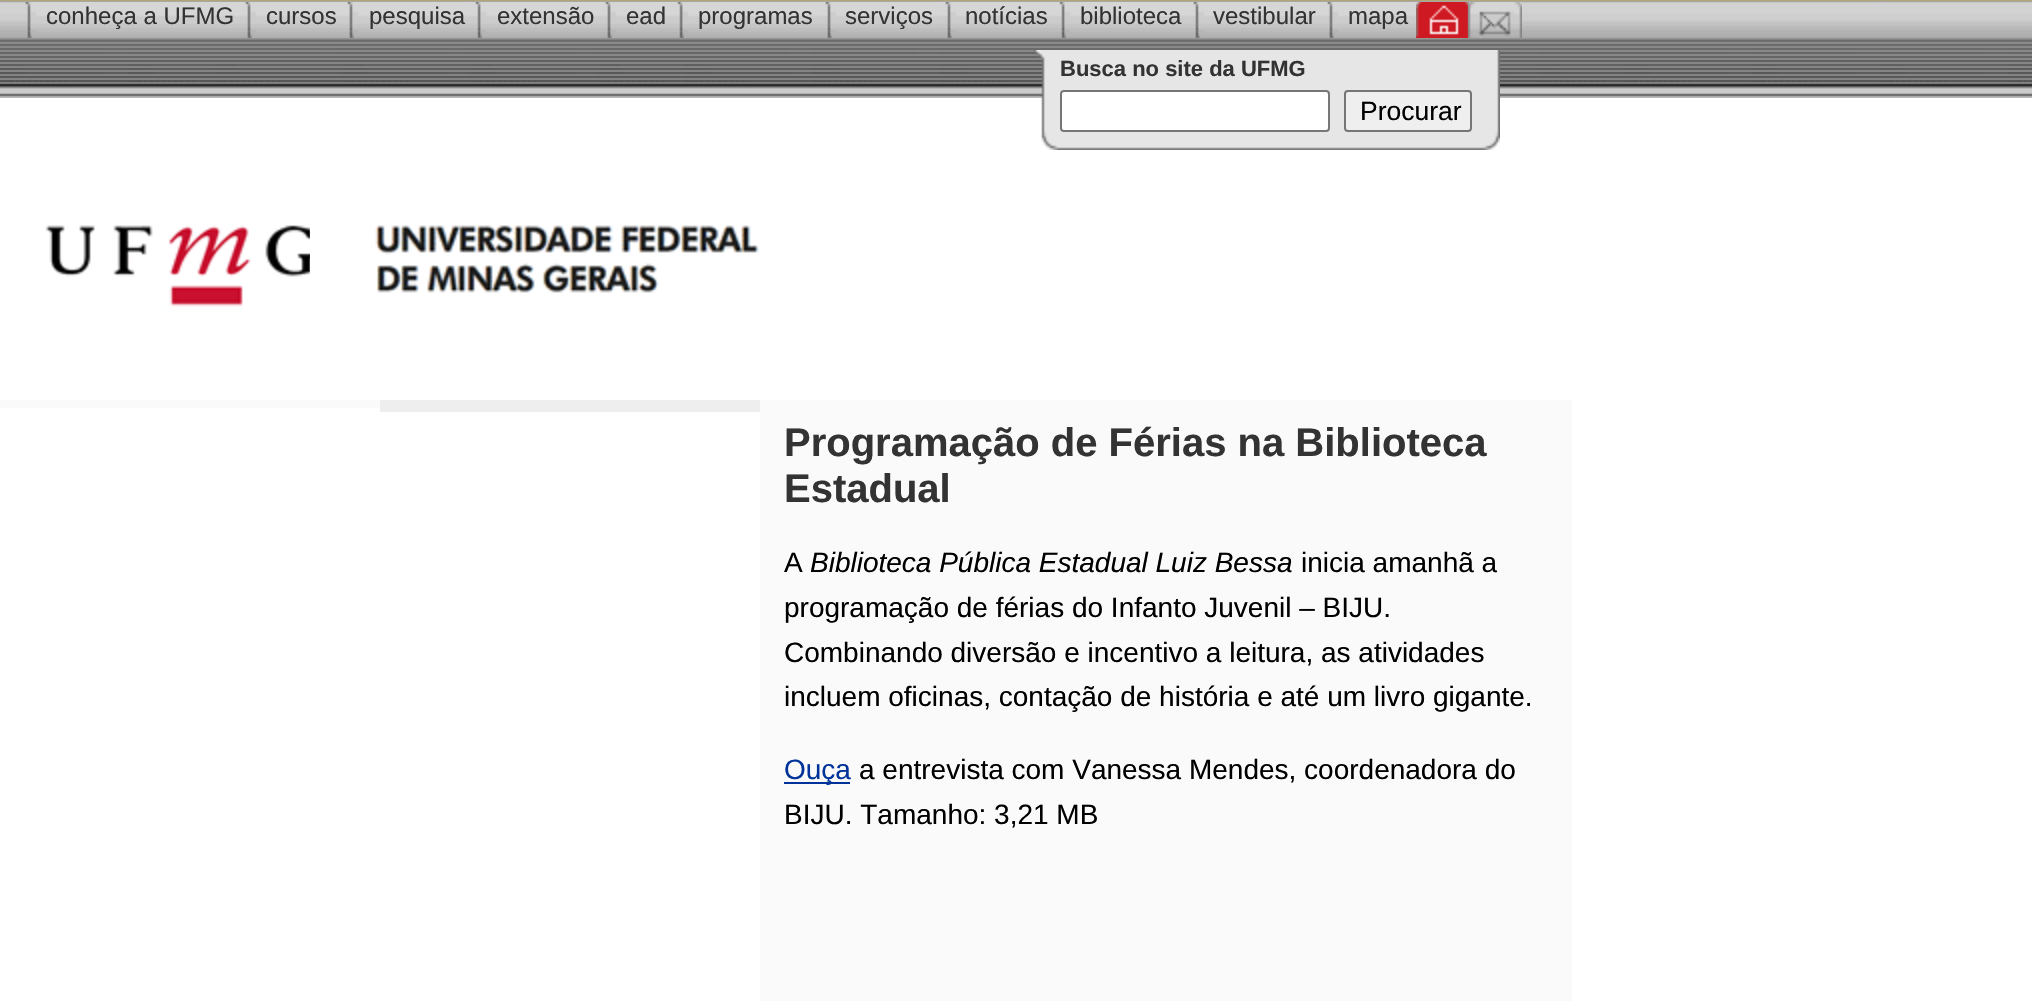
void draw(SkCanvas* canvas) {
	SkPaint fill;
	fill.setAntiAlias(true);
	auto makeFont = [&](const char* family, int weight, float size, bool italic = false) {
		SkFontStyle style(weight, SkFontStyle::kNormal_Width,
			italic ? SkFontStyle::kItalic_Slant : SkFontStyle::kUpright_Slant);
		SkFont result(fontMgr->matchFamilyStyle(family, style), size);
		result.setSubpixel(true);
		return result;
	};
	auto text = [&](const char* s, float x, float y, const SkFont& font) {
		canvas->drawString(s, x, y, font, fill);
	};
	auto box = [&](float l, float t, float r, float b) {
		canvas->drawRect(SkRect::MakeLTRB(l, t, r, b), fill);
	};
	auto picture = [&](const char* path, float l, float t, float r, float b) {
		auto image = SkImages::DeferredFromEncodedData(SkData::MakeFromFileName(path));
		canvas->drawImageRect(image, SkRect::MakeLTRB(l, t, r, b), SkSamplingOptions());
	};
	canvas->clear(0xFFFFFFFF);
	picture("image0.png", 0, 0, 2032, 98);
	picture("image1.png", 25, 2, 249, 38);
	picture("image2.png", 245, 2, 351, 38);
	picture("image3.png", 347, 2, 479, 38);
	picture("image4.png", 475, 2, 609, 38);
	picture("image5.png", 605, 2, 681, 38);
	picture("image6.png", 677, 2, 829, 38);
	picture("image7.png", 825, 2, 949, 38);
	picture("image8.png", 945, 2, 1063, 38);
	picture("image9.png", 1059, 2, 1197, 38);
	picture("image10.png", 1193, 2, 1331, 38);
	picture("image11.png", 1327, 2, 1419, 38);
	picture("image12.png", 1467, 3, 1469, 5);
	picture("image14.png", 1467, 2, 1522, 5);
	picture("image13.png", 1416, 2, 1470, 38);
	picture("image15.png", 1468, 2, 1522, 38);
	picture("image16.png", 1033, 50, 1500, 150);
	fill.setColor(0xFFFFFFFF);
	canvas->drawRoundRect(SkRect::MakeLTRB(1061, 91, 1329, 131), 3, 3, fill);
	fill.setStyle(SkPaint::kStroke_Style);
	fill.setStrokeWidth(2);
	fill.setColor(0xFF767676);
	canvas->drawRoundRect(SkRect::MakeLTRB(1061, 91, 1329, 131), 3, 3, fill);
	fill.setStyle(SkPaint::kFill_Style);
	fill.setColor(0xFFEFEFEF);
	canvas->drawRoundRect(SkRect::MakeLTRB(1345, 91, 1471, 131), 3, 3, fill);
	fill.setStyle(SkPaint::kStroke_Style);
	fill.setColor(0xFF767676);
	canvas->drawRoundRect(SkRect::MakeLTRB(1345, 91, 1471, 131), 3, 3, fill);
	picture("image17.png", 45, 225, 315, 310);
	picture("image18.png", 310, 225, 759, 294);
	fill.setStyle(SkPaint::kFill_Style);
	fill.setColor(0xFFFAFAFA);
	box(0, 400, 380, 408);
	fill.setColor(0xFFEEEEEE);
	box(380, 400, 760, 412);
	fill.setColor(0xFFFAFAFA);
	box(760, 400, 1572, 1001);
	fill.setColor(0xFF003399);
	box(784, 782, 850, 784);
	auto font1 = makeFont("Liberation Sans", 400, 24);
	fill.setColor(0xFF333333);
	text("conheça a UFMG", 46, 24, font1);
	text("cursos", 266, 24, font1);
	text("pesquisa", 369, 24, font1);
	text("extensão", 497, 24, font1);
	text("ead", 626, 24, font1);
	text("programas", 698, 24, font1);
	text("serviços", 845, 24, font1);
	text("notícias", 965, 24, font1);
	text("biblioteca", 1080, 24, font1);
	text("vestibular", 1213, 24, font1);
	text("mapa", 1348, 24, font1);
	auto font2 = makeFont("Liberation Sans", 700, 22);
	text("Busca no site da UFMG", 1060, 76, font2);
	auto font3 = makeFont("Liberation Sans", 400, 26.5f);
	fill.setColor(0xFF000000);
	text("Procurar", 1360, 120, font3);
	auto font4 = makeFont("Liberation Sans", 700, 40);
	fill.setColor(0xFF333333);
	text("Programação de Férias na Biblioteca", 784, 456, font4);
	text("Estadual", 784, 502, font4);
	auto font5 = makeFont("Liberation Sans", 400, 28);
	fill.setColor(0xFF000000);
	text("A", 784, 572, font5);
	auto font6 = makeFont("Liberation Sans", 400, 28, true);
	text("Biblioteca Pública Estadual Luiz Bessa", 810, 572, font6);
	text("inicia amanhã a", 1301, 572, font5);
	text("programação de férias do Infanto Juvenil – BIJU.", 784, 617, font5);
	text("Combinando diversão e incentivo a leitura, as atividades", 784, 662, font5);
	text("incluem oficinas, contação de história e até um livro gigante.", 784, 706, font5);
	fill.setColor(0xFF003399);
	text("Ouça", 784, 779, font5);
	fill.setColor(0xFF000000);
	text("a entrevista com Vanessa Mendes, coordenadora do", 859, 779, font5);
	text("BIJU. Tamanho: 3,21 MB", 784, 824, font5);
}
